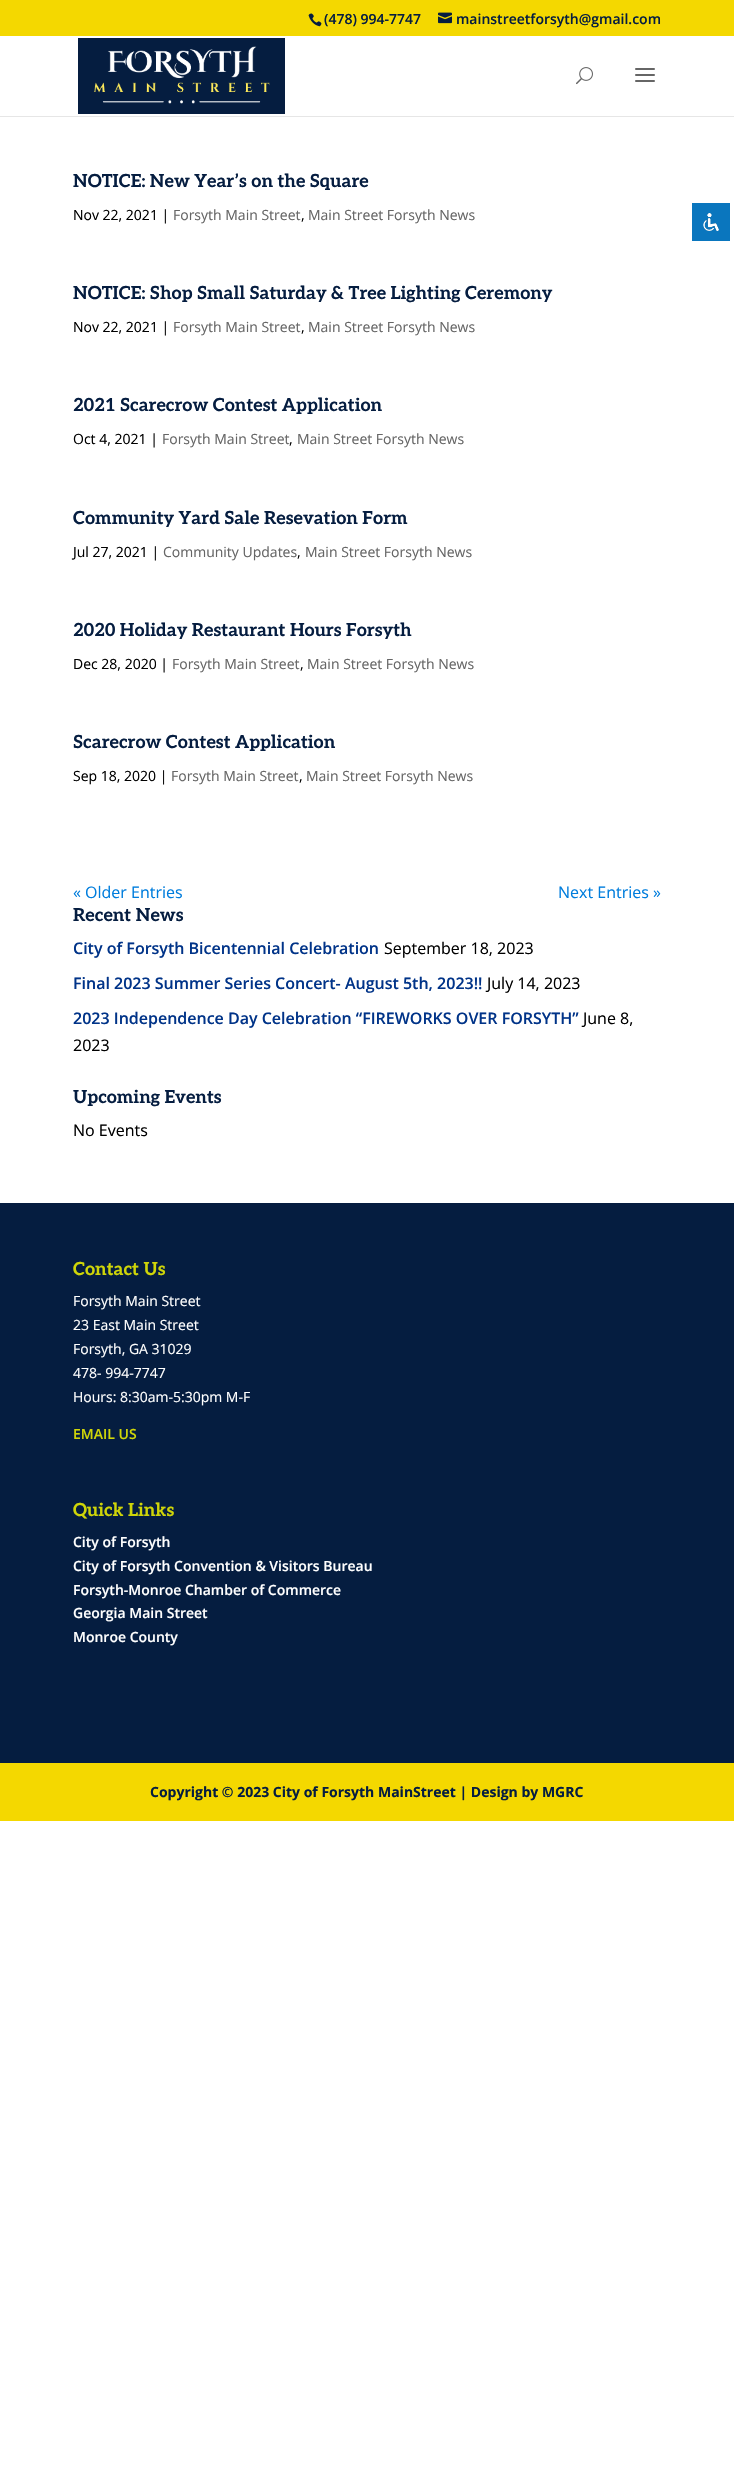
void draw(SkCanvas* canvas) {
	SkPaint fill;
	fill.setAntiAlias(true);
	auto makeFont = [&](const char* family, int weight, float size, bool italic = false) {
		SkFontStyle style(weight, SkFontStyle::kNormal_Width,
			italic ? SkFontStyle::kItalic_Slant : SkFontStyle::kUpright_Slant);
		SkFont result(fontMgr->matchFamilyStyle(family, style), size);
		result.setSubpixel(true);
		return result;
	};
	auto text = [&](const char* s, float x, float y, const SkFont& font) {
		canvas->drawString(s, x, y, font, fill);
	};
	auto box = [&](float l, float t, float r, float b) {
		canvas->drawRect(SkRect::MakeLTRB(l, t, r, b), fill);
	};
	auto picture = [&](const char* path, float l, float t, float r, float b) {
		auto image = SkImages::DeferredFromEncodedData(SkData::MakeFromFileName(path));
		canvas->drawImageRect(image, SkRect::MakeLTRB(l, t, r, b), SkSamplingOptions());
	};
	canvas->clear(0xFFFFFFFF);
	fill.setColor(0xFFF4D800);
	box(0, 0, 734, 36);
	picture("image0.png", 308, 13, 322, 27);
	picture("image1.png", 438, 12, 452, 24);
	fill.setColor(0xFFE6E6E6);
	box(0, 116, 734, 117);
	picture("image2.png", 78, 38, 285, 114);
	picture("image3.png", 576, 67, 593, 85);
	picture("image4.png", 635, 68, 655, 82);
	fill.setColor(0xFF051D40);
	box(0, 1203, 734, 1763);
	fill.setColor(0xFFF4D800);
	box(0, 1763, 734, 1821);
	fill.setColor(0xFF0A76BE);
	canvas->drawRoundRect(SkRect::MakeLTRB(690.5f, 201.5f, 731.5f, 242.5f), 0.5f, 0.5f, fill);
	fill.setStyle(SkPaint::kStroke_Style);
	fill.setStrokeWidth(3);
	fill.setColor(0xFFFFFFFF);
	canvas->drawRoundRect(SkRect::MakeLTRB(690.5f, 201.5f, 731.5f, 242.5f), 0.5f, 0.5f, fill);
	picture("image5.png", 703, 213, 719, 231);
	auto font1 = makeFont("Open Sans", 600, 14);
	fill.setStyle(SkPaint::kFill_Style);
	fill.setColor(0xFF051D40);
	text("(478) 994-7747", 324, 24, font1);
	text("mainstreetforsyth@gmail.com", 456, 24, font1);
	auto font2 = makeFont("Aleo", 700, 18);
	text("NOTICE: New Year’s on the Square", 73, 187, font2);
	auto font3 = makeFont("Open Sans", 400, 14);
	fill.setColor(0xFF000000);
	text("Nov 22, 2021 |", 73, 220, font3);
	fill.setColor(0xFF666666);
	text("Forsyth Main Street", 173, 220, font3);
	fill.setColor(0xFF000000);
	text(",", 301, 220, font3);
	fill.setColor(0xFF666666);
	text("Main Street Forsyth News", 308, 220, font3);
	fill.setColor(0xFF051D40);
	text("NOTICE: Shop Small Saturday & Tree Lighting Ceremony", 73, 299, font2);
	fill.setColor(0xFF000000);
	text("Nov 22, 2021 |", 73, 332, font3);
	fill.setColor(0xFF666666);
	text("Forsyth Main Street", 173, 332, font3);
	fill.setColor(0xFF000000);
	text(",", 301, 332, font3);
	fill.setColor(0xFF666666);
	text("Main Street Forsyth News", 308, 332, font3);
	fill.setColor(0xFF051D40);
	text("2021 Scarecrow Contest Application", 73, 411, font2);
	fill.setColor(0xFF000000);
	text("Oct 4, 2021 |", 73, 444, font3);
	fill.setColor(0xFF666666);
	text("Forsyth Main Street", 162, 444, font3);
	fill.setColor(0xFF000000);
	text(",", 289, 444, font3);
	fill.setColor(0xFF666666);
	text("Main Street Forsyth News", 297, 444, font3);
	fill.setColor(0xFF051D40);
	text("Community Yard Sale Resevation Form", 73, 524, font2);
	fill.setColor(0xFF000000);
	text("Jul 27, 2021 |", 73, 557, font3);
	fill.setColor(0xFF666666);
	text("Community Updates", 163, 557, font3);
	fill.setColor(0xFF000000);
	text(",", 297, 557, font3);
	fill.setColor(0xFF666666);
	text("Main Street Forsyth News", 305, 557, font3);
	fill.setColor(0xFF051D40);
	text("2020 Holiday Restaurant Hours Forsyth", 73, 636, font2);
	fill.setColor(0xFF000000);
	text("Dec 28, 2020 |", 73, 669, font3);
	fill.setColor(0xFF666666);
	text("Forsyth Main Street", 172, 669, font3);
	fill.setColor(0xFF000000);
	text(",", 300, 669, font3);
	fill.setColor(0xFF666666);
	text("Main Street Forsyth News", 307, 669, font3);
	fill.setColor(0xFF051D40);
	text("Scarecrow Contest Application", 73, 748, font2);
	fill.setColor(0xFF000000);
	text("Sep 18, 2020 |", 73, 781, font3);
	fill.setColor(0xFF666666);
	text("Forsyth Main Street", 171, 781, font3);
	fill.setColor(0xFF000000);
	text(",", 299, 781, font3);
	fill.setColor(0xFF666666);
	text("Main Street Forsyth News", 306, 781, font3);
	auto font4 = makeFont("Open Sans", 400, 16);
	fill.setColor(0xFF007DDD);
	text("« Older Entries", 73, 898, font4);
	text("Next Entries »", 558, 898, font4);
	fill.setColor(0xFF051D40);
	text("Recent News", 73, 921, font2);
	auto font5 = makeFont("Open Sans", 600, 16);
	fill.setColor(0xFF003388);
	text("City of Forsyth Bicentennial Celebration", 73, 954, font5);
	fill.setColor(0xFF000000);
	text("September 18, 2023", 384, 954, font4);
	fill.setColor(0xFF003388);
	text("Final 2023 Summer Series Concert- August 5th, 2023!!", 73, 989, font5);
	fill.setColor(0xFF000000);
	text("July 14, 2023", 487, 989, font4);
	fill.setColor(0xFF003388);
	text("2023 Independence Day Celebration “FIREWORKS OVER FORSYTH”", 73, 1024, font5);
	fill.setColor(0xFF000000);
	text("June 8,", 583, 1024, font4);
	text("2023", 73, 1051, font4);
	fill.setColor(0xFF051D40);
	text("Upcoming Events", 73, 1103, font2);
	fill.setColor(0xFF000000);
	text("No Events", 73, 1136, font4);
	fill.setColor(0xFFCFD508);
	text("Contact Us", 73, 1275, font2);
	fill.setColor(0xFFFFFFFF);
	text("Forsyth Main Street", 73, 1306, font3);
	text("23 East Main Street", 73, 1330, font3);
	text("Forsyth, GA 31029", 73, 1354, font3);
	text("478- 994-7747", 73, 1378, font3);
	text("Hours: 8:30am-5:30pm M-F", 73, 1402, font3);
	fill.setColor(0xFFCFD508);
	text("EMAIL US", 73, 1439, font1);
	text("Quick Links", 73, 1516, font2);
	fill.setColor(0xFFFFFFFF);
	text("City of Forsyth", 73, 1547, font1);
	text("City of Forsyth Convention & Visitors Bureau", 73, 1571, font1);
	text("Forsyth-Monroe Chamber of Commerce", 73, 1595, font1);
	text("Georgia Main Street", 73, 1618, font1);
	text("Monroe County", 73, 1642, font1);
	auto font6 = makeFont("Open Sans", 700, 14);
	fill.setColor(0xFF051D40);
	text("Copyright © 2023 City of Forsyth MainStreet | Design by MGRC", 150, 1797, font6);
}
